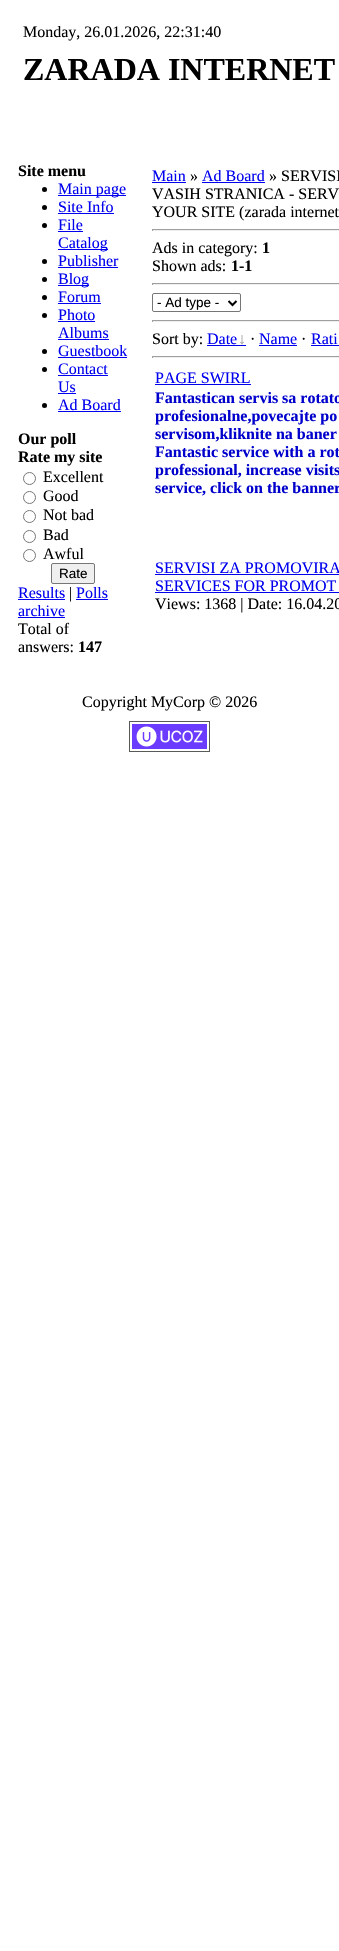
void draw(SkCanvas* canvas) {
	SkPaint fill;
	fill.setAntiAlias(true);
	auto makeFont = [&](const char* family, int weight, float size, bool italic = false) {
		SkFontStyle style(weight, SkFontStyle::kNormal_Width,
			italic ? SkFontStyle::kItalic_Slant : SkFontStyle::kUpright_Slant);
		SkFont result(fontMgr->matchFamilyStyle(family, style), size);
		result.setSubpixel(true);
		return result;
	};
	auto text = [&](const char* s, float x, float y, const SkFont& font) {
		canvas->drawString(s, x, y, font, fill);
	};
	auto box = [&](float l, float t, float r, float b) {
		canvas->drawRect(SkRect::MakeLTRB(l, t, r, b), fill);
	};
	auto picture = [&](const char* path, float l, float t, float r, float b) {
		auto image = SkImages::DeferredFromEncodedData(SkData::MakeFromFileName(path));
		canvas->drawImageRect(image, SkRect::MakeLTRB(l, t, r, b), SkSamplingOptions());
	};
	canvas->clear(0xFFFFFFFF);
	fill.setColor(0xFF000000);
	canvas->drawCircle(44.5f, 189.5f, 2.5f, fill);
	fill.setColor(0xFF0000EE);
	box(58, 195, 126, 196);
	fill.setColor(0xFF000000);
	canvas->drawCircle(44.5f, 207.5f, 2.5f, fill);
	fill.setColor(0xFF0000EE);
	box(58, 213, 114, 214);
	fill.setColor(0xFF000000);
	canvas->drawCircle(44.5f, 225.5f, 2.5f, fill);
	fill.setColor(0xFF0000EE);
	box(58, 231, 83, 232);
	box(58, 249, 108, 250);
	fill.setColor(0xFF000000);
	canvas->drawCircle(44.5f, 261.5f, 2.5f, fill);
	fill.setColor(0xFF0000EE);
	box(58, 267, 118, 268);
	fill.setColor(0xFF000000);
	canvas->drawCircle(44.5f, 279.5f, 2.5f, fill);
	fill.setColor(0xFF0000EE);
	box(58, 285, 89, 286);
	fill.setColor(0xFF000000);
	canvas->drawCircle(44.5f, 297.5f, 2.5f, fill);
	fill.setColor(0xFF0000EE);
	box(58, 303, 101, 304);
	fill.setColor(0xFF000000);
	canvas->drawCircle(44.5f, 315.5f, 2.5f, fill);
	fill.setColor(0xFF0000EE);
	box(58, 321, 95, 322);
	box(58, 339, 109, 340);
	fill.setColor(0xFF000000);
	canvas->drawCircle(44.5f, 351.5f, 2.5f, fill);
	fill.setColor(0xFF0000EE);
	box(58, 357, 127, 358);
	fill.setColor(0xFF000000);
	canvas->drawCircle(44.5f, 369.5f, 2.5f, fill);
	fill.setColor(0xFF0000EE);
	box(58, 375, 108, 376);
	box(58, 393, 76, 394);
	fill.setColor(0xFF000000);
	canvas->drawCircle(44.5f, 405.5f, 2.5f, fill);
	fill.setColor(0xFF0000EE);
	box(58, 411, 121, 412);
	fill.setStyle(SkPaint::kStroke_Style);
	fill.setStrokeWidth(1);
	fill.setColor(0xFF767676);
	canvas->drawCircle(29.5f, 478.5f, 6, fill);
	canvas->drawCircle(29.5f, 497.5f, 6, fill);
	canvas->drawCircle(29.5f, 516.5f, 6, fill);
	canvas->drawCircle(29.5f, 536.5f, 6, fill);
	canvas->drawCircle(29.5f, 555.5f, 6, fill);
	fill.setStyle(SkPaint::kFill_Style);
	fill.setColor(0xFFEFEFEF);
	canvas->drawRoundRect(SkRect::MakeLTRB(51.5f, 563.5f, 94.5f, 583.5f), 1.5f, 1.5f, fill);
	fill.setStyle(SkPaint::kStroke_Style);
	fill.setColor(0xFF767676);
	canvas->drawRoundRect(SkRect::MakeLTRB(51.5f, 563.5f, 94.5f, 583.5f), 1.5f, 1.5f, fill);
	fill.setStyle(SkPaint::kFill_Style);
	fill.setColor(0xFF0000EE);
	box(18, 599, 65, 600);
	box(76, 599, 108, 600);
	box(18, 617, 65, 618);
	box(152, 182, 186, 183);
	box(202, 182, 265, 183);
	fill.setColor(0xFF9F9F9F);
	box(152, 229, 339, 230);
	fill.setColor(0xFFEEEEEE);
	box(152, 230, 339, 231);
	fill.setColor(0xFF9F9F9F);
	box(152, 229, 153, 231);
	box(152, 283, 339, 284);
	fill.setColor(0xFFEEEEEE);
	box(152, 284, 339, 285);
	fill.setColor(0xFF9F9F9F);
	box(152, 283, 153, 285);
	fill.setStyle(SkPaint::kStroke_Style);
	fill.setColor(0xFF767676);
	canvas->drawRoundRect(SkRect::MakeLTRB(152.5f, 293.5f, 240.5f, 311.5f), 1.5f, 1.5f, fill);
	fill.setStrokeWidth(2);
	fill.setColor(0xFF000000);
	canvas->drawPath(SkPathBuilder().moveTo(228.5f, 301).lineTo(232.5f, 305).lineTo(236.5f, 301).detach(), fill);
	fill.setStyle(SkPaint::kFill_Style);
	fill.setColor(0xFF9F9F9F);
	box(152, 320, 339, 321);
	fill.setColor(0xFFEEEEEE);
	box(152, 321, 339, 322);
	fill.setColor(0xFF9F9F9F);
	box(152, 320, 153, 322);
	fill.setColor(0xFF0000EE);
	box(207, 345, 246, 346);
	box(259, 345, 297, 346);
	box(311, 345, 339, 346);
	fill.setColor(0xFF9F9F9F);
	box(152, 356, 339, 357);
	fill.setColor(0xFFEEEEEE);
	box(152, 357, 339, 358);
	fill.setColor(0xFF9F9F9F);
	box(152, 356, 153, 358);
	fill.setColor(0xFF0000EE);
	box(155, 384, 251, 385);
	box(155, 574, 339, 575);
	box(155, 592, 339, 593);
	picture("image0.png", 129, 721, 210, 752);
	auto font1 = makeFont("Liberation Serif", 400, 16);
	fill.setColor(0xFF000000);
	text("Monday, 26.01.2026, 22:31:40", 23, 37, font1);
	auto font2 = makeFont("Liberation Serif", 700, 32);
	text("ZARADA INTERNET", 23, 80, font2);
	auto font3 = makeFont("Liberation Serif", 700, 16);
	text("Site menu", 18, 176, font3);
	fill.setColor(0xFF0000EE);
	text("Main page", 58, 194, font1);
	text("Site Info", 58, 212, font1);
	text("File", 58, 230, font1);
	text("Catalog", 58, 248, font1);
	text("Publisher", 58, 266, font1);
	text("Blog", 58, 284, font1);
	text("Forum", 58, 302, font1);
	text("Photo", 58, 320, font1);
	text("Albums", 58, 338, font1);
	text("Guestbook", 58, 356, font1);
	text("Contact", 58, 374, font1);
	text("Us", 58, 392, font1);
	text("Ad Board", 58, 410, font1);
	fill.setColor(0xFF000000);
	text("Our poll", 18, 444, font3);
	text("Rate my site", 18, 462, font3);
	text("Excellent", 43, 482, font1);
	text("Good", 43, 501, font1);
	text("Not bad", 43, 520, font1);
	text("Bad", 43, 540, font1);
	text("Awful", 43, 559, font1);
	auto font4 = makeFont("Liberation Sans", 400, 13.5f);
	text("Rate", 59, 578, font4);
	fill.setColor(0xFF0000EE);
	text("Results", 18, 598, font1);
	fill.setColor(0xFF000000);
	text("|", 69, 598, font1);
	fill.setColor(0xFF0000EE);
	text("Polls", 76, 598, font1);
	text("archive", 18, 616, font1);
	fill.setColor(0xFF000000);
	text("Total of", 18, 634, font1);
	text("answers:", 18, 652, font1);
	text("147", 78, 652, font3);
	fill.setColor(0xFF0000EE);
	text("Main", 152, 181, font1);
	fill.setColor(0xFF000000);
	text("»", 190, 181, font1);
	fill.setColor(0xFF0000EE);
	text("Ad Board", 202, 181, font1);
	fill.setColor(0xFF000000);
	text("» SERVISI", 269, 181, font1);
	text("VASIH STRANICA - SERV", 152, 199, font1);
	text("YOUR SITE (zarada internet", 152, 217, font1);
	text("Ads in category:", 152, 253, font1);
	text("1", 262, 253, font3);
	text("Shown ads:", 152, 271, font1);
	text("1-1", 231, 271, font3);
	text("- Ad type -", 157, 307, font4);
	text("Sort by:", 152, 344, font1);
	fill.setColor(0xFF0000EE);
	text("Date", 207, 344, font1);
	fill.setColor(0xFFA0A0A0);
	text("↓", 238, 344, font1);
	fill.setColor(0xFF000000);
	text("·", 250, 344, font1);
	fill.setColor(0xFF0000EE);
	text("Name", 259, 344, font1);
	fill.setColor(0xFF000000);
	text("·", 301, 344, font1);
	fill.setColor(0xFF0000EE);
	text("Rati", 311, 344, font1);
	text("PAGE SWIRL", 155, 383, font1);
	fill.setColor(0xFF0000CD);
	text("Fantastican servis sa rotato", 155, 403, font3);
	text("profesionalne,povecajte po", 155, 421, font3);
	text("servisom,kliknite na baner", 155, 439, font3);
	text("Fantastic service with a rot", 155, 457, font3);
	text("professional, increase visits", 155, 475, font3);
	text("service, click on the banner", 155, 493, font3);
	fill.setColor(0xFF0000EE);
	text("SERVISI ZA PROMOVIRA", 155, 573, font1);
	text("SERVICES FOR PROMOT", 155, 591, font1);
	fill.setColor(0xFF000000);
	text("Views: 1368 | Date: 16.04.20", 155, 609, font1);
	text("Copyright MyCorp © 2026", 82, 707, font1);
}
